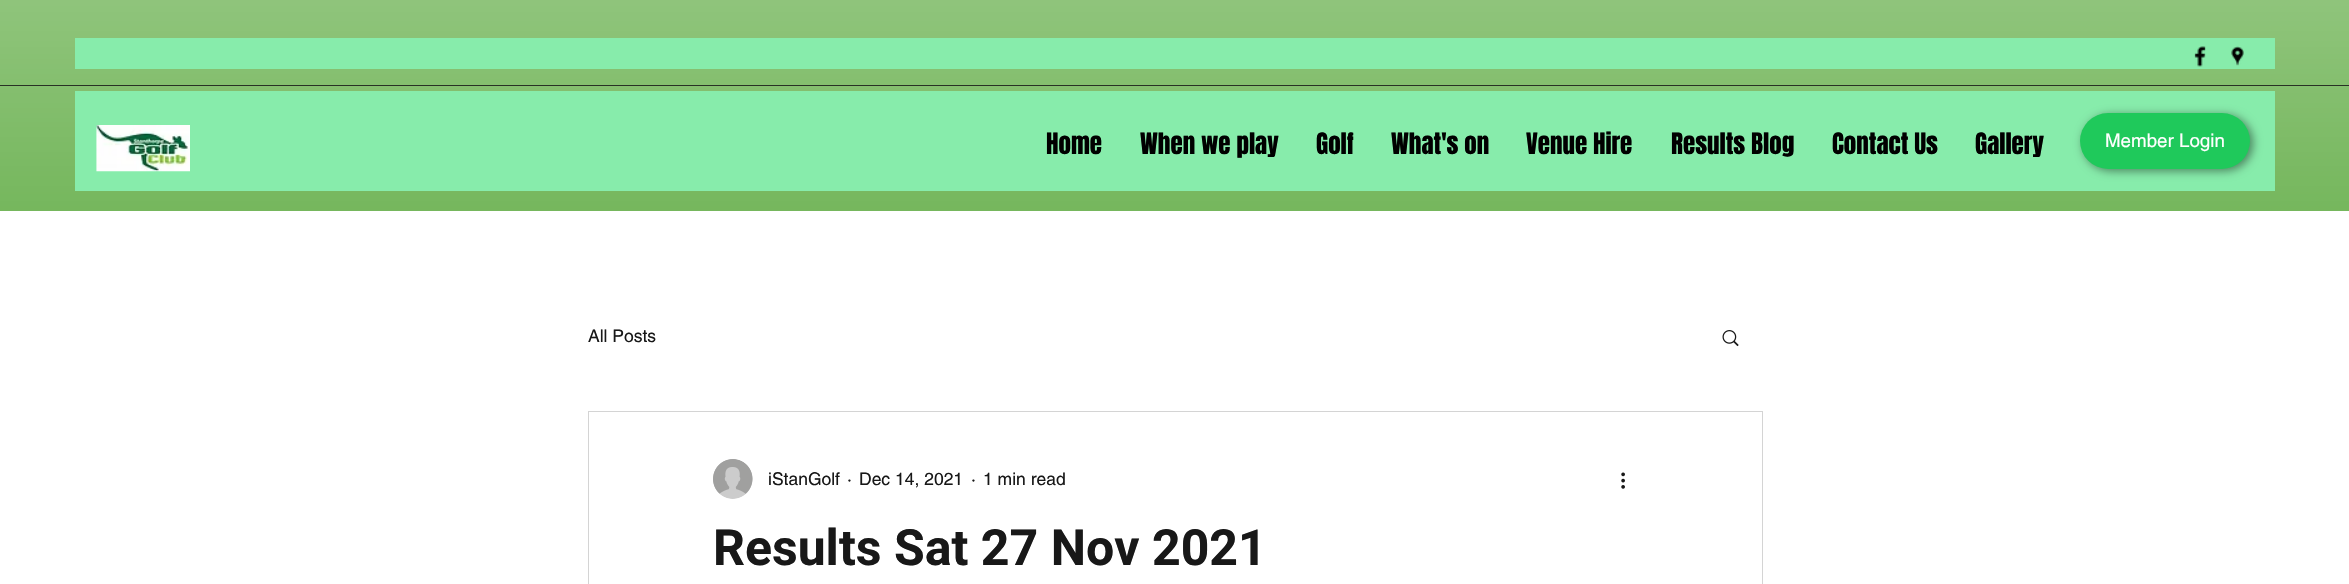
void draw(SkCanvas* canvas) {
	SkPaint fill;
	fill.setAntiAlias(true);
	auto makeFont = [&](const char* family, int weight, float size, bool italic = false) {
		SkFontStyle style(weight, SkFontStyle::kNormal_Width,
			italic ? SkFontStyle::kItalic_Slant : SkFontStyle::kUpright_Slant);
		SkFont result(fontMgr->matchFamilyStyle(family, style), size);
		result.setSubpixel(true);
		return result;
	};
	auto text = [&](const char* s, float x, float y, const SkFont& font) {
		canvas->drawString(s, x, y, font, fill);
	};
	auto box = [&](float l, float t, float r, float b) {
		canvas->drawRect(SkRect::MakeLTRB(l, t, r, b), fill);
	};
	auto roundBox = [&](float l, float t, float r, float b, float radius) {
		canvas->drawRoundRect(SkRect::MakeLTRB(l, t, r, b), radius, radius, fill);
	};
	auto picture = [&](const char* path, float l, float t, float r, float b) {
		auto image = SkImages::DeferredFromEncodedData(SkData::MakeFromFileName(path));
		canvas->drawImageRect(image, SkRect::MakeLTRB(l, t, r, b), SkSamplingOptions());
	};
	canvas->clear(0xFFFFFFFF);
	fill.setColor(0xFF68B04D);
	box(0, 0, 2349, 211);
	picture("image0.png", 0, 0, 2349, 211);
	fill.setColor(0xFF87ECAB);
	box(75, 38, 2275, 69);
	picture("image1.png", 2194, 46, 2206, 67);
	picture("image2.png", 2231, 46, 2244, 66);
	fill.setColor(0xFF283125);
	box(0, 85, 2349, 86);
	fill.setColor(0xFF87ECAB);
	box(75, 91, 2275, 191);
	picture("image3.png", 96, 125, 190, 172);
	fill.setColor(0x73000000);
	fill.setMaskFilter(SkMaskFilter::MakeBlur(kNormal_SkBlurStyle, 5));
	canvas->drawRoundRect(SkRect::MakeLTRB(2083, 115, 2253, 171), 28, 28, fill);
	fill.setMaskFilter(nullptr);
	fill.setColor(0xFF1FC95B);
	roundBox(2080, 113, 2250, 169, 28);
	picture("image4.png", 1722, 330, 1739, 347);
	fill.setStyle(SkPaint::kStroke_Style);
	fill.setStrokeWidth(1);
	fill.setColor(0xFFD4D4D4);
	canvas->drawRect(SkRect::MakeLTRB(588.5f, 411.5f, 1762.5f, 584.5f), fill);
	picture("image5.png", 713, 459, 753, 499);
	picture("image6.png", 1621, 472, 1625, 489);
	auto font1 = makeFont("Anton", 400, 25);
	fill.setStyle(SkPaint::kFill_Style);
	fill.setColor(0xFF000000);
	text("Home", 1046, 154, font1);
	text("When we play", 1140, 154, font1);
	text("Golf", 1316, 154, font1);
	text("What's on", 1391, 154, font1);
	text("Venue Hire", 1526, 154, font1);
	text("Results Blog", 1671, 154, font1);
	text("Contact Us", 1832, 154, font1);
	text("Gallery", 1975, 154, font1);
	auto font2 = makeFont("helvetica", 400, 18.75f);
	fill.setColor(0xFFFFFFFF);
	text("Member Login", 2105, 147, font2);
	auto font3 = makeFont("helvetica", 400, 17.5f);
	fill.setColor(0xFF181818);
	text("All Posts", 588, 342, font3);
	text("iStanGolf", 768, 485, font3);
	text("·", 847, 485, font3);
	text("Dec 14, 2021", 859, 485, font3);
	text("·", 971, 485, font3);
	text("1 min read", 983, 485, font3);
	auto font4 = makeFont("Roboto", 700, 50);
	text("Results Sat 27 Nov 2021", 713, 565, font4);
}
